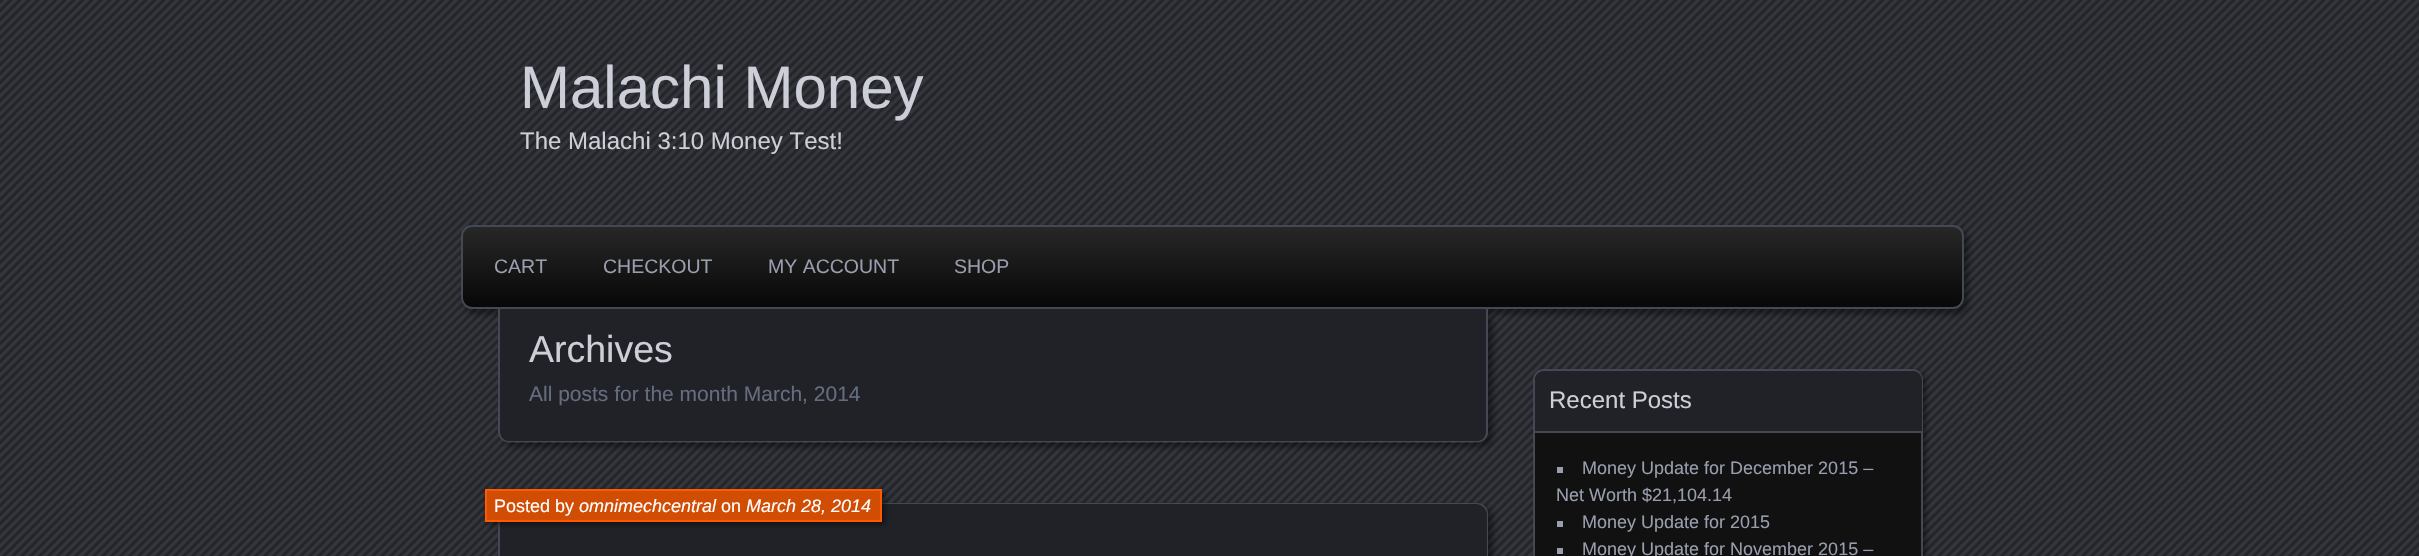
void draw(SkCanvas* canvas) {
	SkPaint fill;
	fill.setAntiAlias(true);
	auto makeFont = [&](const char* family, int weight, float size, bool italic = false) {
		SkFontStyle style(weight, SkFontStyle::kNormal_Width,
			italic ? SkFontStyle::kItalic_Slant : SkFontStyle::kUpright_Slant);
		SkFont result(fontMgr->matchFamilyStyle(family, style), size);
		result.setSubpixel(true);
		return result;
	};
	auto text = [&](const char* s, float x, float y, const SkFont& font) {
		canvas->drawString(s, x, y, font, fill);
	};
	auto box = [&](float l, float t, float r, float b) {
		canvas->drawRect(SkRect::MakeLTRB(l, t, r, b), fill);
	};
	auto picture = [&](const char* path, float l, float t, float r, float b) {
		auto image = SkImages::DeferredFromEncodedData(SkData::MakeFromFileName(path));
		canvas->drawImageRect(image, SkRect::MakeLTRB(l, t, r, b), SkSamplingOptions());
	};
	canvas->clear(0xFF202228);
	picture("image0.png", 0, 0, 2419, 556);
	fill.setColor(0x73000000);
	fill.setMaskFilter(SkMaskFilter::MakeBlur(kNormal_SkBlurStyle, 3));
	canvas->drawRoundRect(SkRect::MakeLTRB(465, 230, 1968, 314), 11, 11, fill);
	fill.setMaskFilter(nullptr);
	canvas->save();
	canvas->clipPath(SkPathBuilder().moveTo(472, 225).lineTo(1953, 225).cubicTo(1959, 225, 1964, 230, 1964, 236).lineTo(1964, 298).cubicTo(1964, 304, 1959, 309, 1953, 309).lineTo(472, 309).cubicTo(466, 309, 461, 304, 461, 298).lineTo(461, 236).cubicTo(461, 230, 466, 225, 472, 225).close().detach(), true);
	{
		const SkColor colors[] = {0xFF272727, 0xFF070707};
		const float stops[] = {0.01f, 1};
		const SkPoint ends[] = {{1212, 226}, {1212, 308}};
		fill.setShader(SkGradientShader::MakeLinear(ends, colors, stops, 2, SkTileMode::kClamp));
		fill.setAlpha(255);
	}
	box(461, 227, 1964, 308);
	canvas->restore();
	fill.setStyle(SkPaint::kStroke_Style);
	fill.setStrokeWidth(2);
	fill.setShader(nullptr);
	fill.setColor(0xFF444855);
	canvas->drawRoundRect(SkRect::MakeLTRB(462, 226, 1963, 308), 10, 10, fill);
	canvas->save();
	canvas->clipPath(SkPathBuilder(SkPathFillType::kEvenOdd).moveTo(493, 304).lineTo(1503, 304).lineTo(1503, 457).lineTo(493, 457).close().moveTo(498, 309).lineTo(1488, 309).lineTo(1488, 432).cubicTo(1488, 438, 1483, 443, 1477, 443).lineTo(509, 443).cubicTo(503, 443, 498, 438, 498, 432).close().detach(), true);
	fill.setStyle(SkPaint::kFill_Style);
	fill.setColor(0x73000000);
	fill.setMaskFilter(SkMaskFilter::MakeBlur(kNormal_SkBlurStyle, 3));
	canvas->drawRoundRect(SkRect::MakeLTRB(503, 314, 1493, 447), 11, 11, fill);
	fill.setMaskFilter(nullptr);
	canvas->restore();
	fill.setColor(0xFF202228);
	canvas->drawPath(SkPathBuilder().moveTo(500, 309).lineTo(1487, 309).lineTo(1487, 432).cubicTo(1487, 437, 1483, 441, 1478, 441).lineTo(509, 441).cubicTo(504, 441, 500, 437, 500, 432).close().detach(), fill);
	fill.setColor(0xFF444855);
	canvas->drawPath(SkPathBuilder(SkPathFillType::kEvenOdd).moveTo(498, 309).lineTo(1488, 309).lineTo(1488, 432).cubicTo(1488, 438, 1483, 442, 1478, 442).lineTo(508, 442).cubicTo(503, 442, 498, 438, 498, 432).close().moveTo(500, 309).lineTo(1486, 309).lineTo(1486, 432).cubicTo(1486, 437, 1482, 441, 1478, 441).lineTo(508, 441).cubicTo(504, 441, 500, 437, 500, 432).close().detach(), fill);
	fill.setColor(0x73000000);
	fill.setMaskFilter(SkMaskFilter::MakeBlur(kNormal_SkBlurStyle, 3));
	canvas->drawRoundRect(SkRect::MakeLTRB(503, 507, 1493, 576), 11, 11, fill);
	fill.setMaskFilter(nullptr);
	fill.setStyle(SkPaint::kStroke_Style);
	fill.setColor(0xFF444855);
	canvas->drawRoundRect(SkRect::MakeLTRB(499, 504, 1487, 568), 10, 10, fill);
	fill.setStyle(SkPaint::kFill_Style);
	fill.setColor(0xFF202228);
	canvas->drawPath(SkPathBuilder().moveTo(511, 504).lineTo(1476, 504).cubicTo(1482, 504, 1487, 509, 1487, 515).lineTo(1487, 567).lineTo(500, 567).lineTo(500, 515).cubicTo(500, 509, 505, 504, 511, 504).close().detach(), fill);
	fill.setColor(0x73000000);
	fill.setMaskFilter(SkMaskFilter::MakeBlur(kNormal_SkBlurStyle, 2.5f));
	canvas->drawRect(SkRect::MakeLTRB(488, 492, 885, 525), fill);
	fill.setMaskFilter(nullptr);
	fill.setColor(0xFFD24D04);
	canvas->drawRect(SkRect::MakeLTRB(486, 490, 881, 521), fill);
	fill.setStyle(SkPaint::kStroke_Style);
	fill.setColor(0xFFFF5A00);
	canvas->drawRect(SkRect::MakeLTRB(486, 490, 881, 521), fill);
	fill.setStyle(SkPaint::kFill_Style);
	fill.setColor(0x73000000);
	fill.setMaskFilter(SkMaskFilter::MakeBlur(kNormal_SkBlurStyle, 2.5f));
	canvas->drawRoundRect(SkRect::MakeLTRB(1536, 372, 1926, 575), 11, 11, fill);
	fill.setMaskFilter(nullptr);
	fill.setColor(0xFF111111);
	canvas->drawRoundRect(SkRect::MakeLTRB(1534, 370, 1922, 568), 10, 10, fill);
	fill.setStyle(SkPaint::kStroke_Style);
	fill.setColor(0xFF444855);
	canvas->drawRoundRect(SkRect::MakeLTRB(1534, 370, 1922, 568), 10, 10, fill);
	fill.setStyle(SkPaint::kFill_Style);
	fill.setColor(0xFF202228);
	canvas->drawPath(SkPathBuilder().moveTo(1544, 371).lineTo(1913, 371).cubicTo(1918, 371, 1922, 375, 1922, 380).lineTo(1922, 432).lineTo(1535, 432).lineTo(1535, 380).cubicTo(1535, 375, 1539, 371, 1544, 371).close().detach(), fill);
	fill.setColor(0xFF444855);
	box(1535, 431, 1922, 433);
	fill.setColor(0xFF989EAE);
	box(1557, 467, 1563, 473);
	box(1557, 521, 1563, 527);
	box(1557, 548, 1563, 554);
	auto font1 = makeFont("Liberation Sans", 400, 60);
	fill.setColor(0xFFCCCFD7);
	text("Malachi Money", 520, 108, font1);
	auto font2 = makeFont("Liberation Sans", 400, 24);
	text("The Malachi 3:10 Money Test!", 520, 149, font2);
	auto font3 = makeFont("Liberation Sans", 400, 19.5f);
	fill.setColor(0xFF989EAE);
	text("CART", 494, 273, font3);
	text("CHECKOUT", 603, 273, font3);
	text("MY ACCOUNT", 768, 273, font3);
	text("SHOP", 954, 273, font3);
	auto font4 = makeFont("Liberation Sans", 400, 37.5f);
	fill.setColor(0xFFCCCFD7);
	text("Archives", 529, 362, font4);
	auto font5 = makeFont("Liberation Sans", 400, 21);
	fill.setColor(0xFF666C7F);
	text("All posts for the month March, 2014", 529, 401, font5);
	auto font6 = makeFont("Liberation Sans", 400, 18);
	fill.setColor(0xFFFFFFFF);
	text("Posted by", 494, 512, font6);
	auto font7 = makeFont("Liberation Sans", 400, 18, true);
	text("omnimechcentral", 579, 512, font7);
	text("on", 721, 512, font6);
	text("March 28, 2014", 746, 512, font7);
	fill.setColor(0xFFCCCFD7);
	text("Recent Posts", 1549, 408, font2);
	fill.setColor(0xFF989EAE);
	text("Money Update for December 2015 –", 1582, 474, font6);
	text("Net Worth $21,104.14", 1556, 501, font6);
	text("Money Update for 2015", 1582, 528, font6);
	text("Money Update for November 2015 –", 1582, 555, font6);
}
